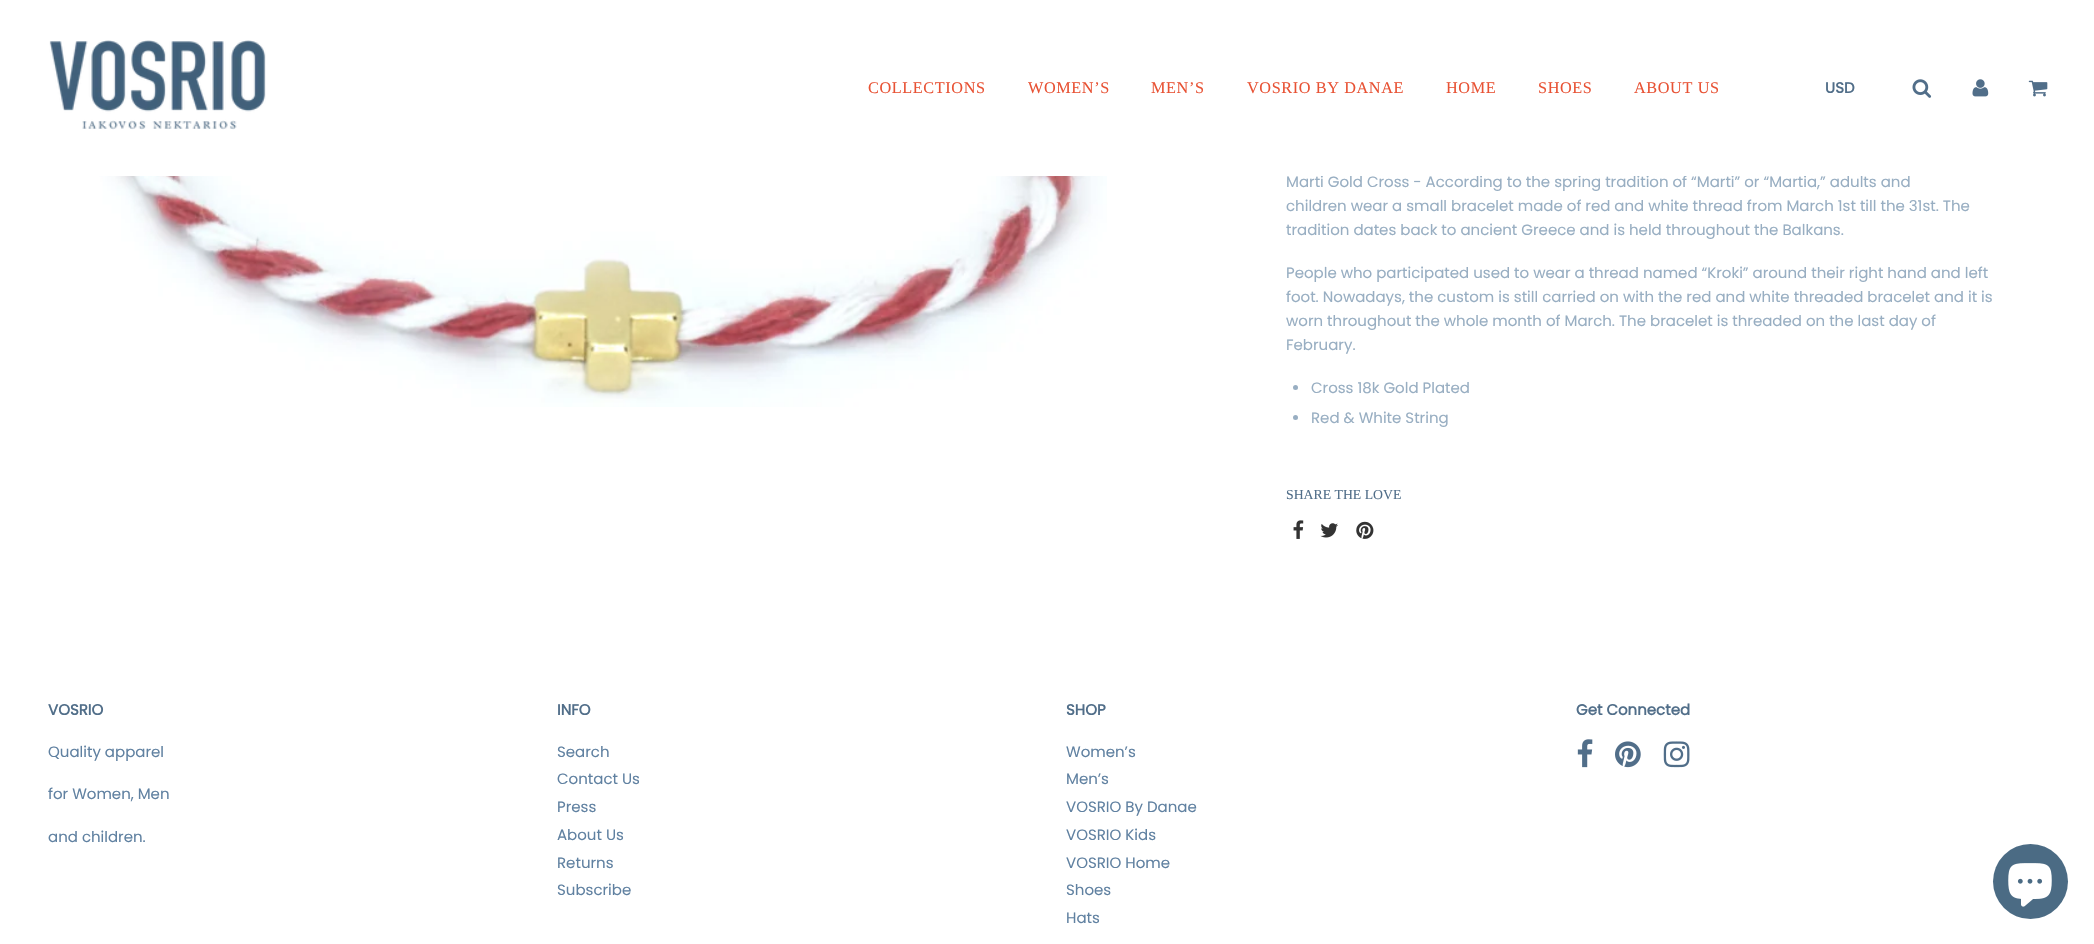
void draw(SkCanvas* canvas) {
	SkPaint fill;
	fill.setAntiAlias(true);
	auto makeFont = [&](const char* family, int weight, float size, bool italic = false) {
		SkFontStyle style(weight, SkFontStyle::kNormal_Width,
			italic ? SkFontStyle::kItalic_Slant : SkFontStyle::kUpright_Slant);
		SkFont result(fontMgr->matchFamilyStyle(family, style), size);
		result.setSubpixel(true);
		return result;
	};
	auto text = [&](const char* s, float x, float y, const SkFont& font) {
		canvas->drawString(s, x, y, font, fill);
	};
	auto spacedText = [&](const char* s, float x, float y, const SkFont& font, const SkPaint& ink, float letter, float word) {
		std::vector<SkGlyphID> glyphs(font.countText(s, strlen(s), SkTextEncoding::kUTF8));
		std::vector<float> xs(glyphs.size());
		font.textToGlyphs(s, strlen(s), SkTextEncoding::kUTF8, glyphs);
		font.getXPos(glyphs, xs, x);
		float extra = 0;
		for (size_t i = 0; i < glyphs.size(); i++) {
			xs[i] += extra;
			extra += letter + word * (glyphs[i] == font.unicharToGlyph(' '));
		}
		canvas->drawTextBlob(SkTextBlob::MakeFromPosHGlyphs(glyphs, xs, y, font), 0, 0, ink);
	};
	auto box = [&](float l, float t, float r, float b) {
		canvas->drawRect(SkRect::MakeLTRB(l, t, r, b), fill);
	};
	auto picture = [&](const char* path, float l, float t, float r, float b) {
		auto image = SkImages::DeferredFromEncodedData(SkData::MakeFromFileName(path));
		canvas->drawImageRect(image, SkRect::MakeLTRB(l, t, r, b), SkSamplingOptions());
	};
	canvas->clear(0xFFFFFFFF);
	picture("image0.png", 49, 40, 266, 130);
	picture("image1.png", 1912, 79, 1932, 98);
	picture("image2.png", 1972, 79, 1989, 97);
	picture("image3.png", 2028, 80, 2048, 97);
	picture("image4.png", 99, 176, 1107, 407);
	fill.setColor(0xFF98AEC2);
	canvas->drawCircle(1295.5f, 387.5f, 2.5f, fill);
	canvas->drawCircle(1295.5f, 417.5f, 2.5f, fill);
	picture("image5.png", 1293, 520, 1304, 539);
	picture("image6.png", 1320, 523, 1338, 538);
	picture("image7.png", 1356, 521, 1374, 539);
	picture("image8.png", 1577, 739, 1593, 768);
	picture("image9.png", 1615, 741, 1641, 768);
	picture("image10.png", 1663, 741, 1690, 768);
	fill.setColor(0xFF4B6B84);
	canvas->drawCircle(2030.5f, 881.5f, 37.5f, fill);
	picture("image11.png", 2008, 863, 2052, 907);
	auto font1 = makeFont("Liberation Serif", 400, 16.25f);
	fill.setColor(0xFFE85234);
	spacedText("COLLECTIONS", 868, 93, font1, fill, 0.6f, 0);
	spacedText("WOMEN’S", 1028, 93, font1, fill, 0.6f, 0);
	spacedText("MEN’S", 1151, 93, font1, fill, 0.6f, 0);
	spacedText("VOSRIO BY DANAE", 1247, 93, font1, fill, 0.6f, 0);
	spacedText("HOME", 1446, 93, font1, fill, 0.6f, 0);
	spacedText("SHOES", 1538, 93, font1, fill, 0.6f, 0);
	spacedText("ABOUT US", 1634, 93, font1, fill, 0.6f, 0);
	auto font2 = makeFont("Poppins", 700, 15);
	fill.setColor(0xFF516E89);
	text("USD", 1825, 93, font2);
	auto font3 = makeFont("Poppins", 400, 15);
	fill.setColor(0xFF98AEC2);
	text("Marti Gold Cross - According to the spring tradition of “Marti” or “Martia,” adults and", 1286, 187, font3);
	fill.setColor(0xFFFFFFFF);
	box(1321, 175, 1910, 176);
	fill.setColor(0xFF98AEC2);
	text("children wear a small bracelet made of red and white thread from March 1st till the 31st. The", 1286, 211, font3);
	text("tradition dates back to ancient Greece and is held throughout the Balkans.", 1286, 235, font3);
	text("People who participated used to wear a thread named “Kroki” around their right hand and left", 1286, 278, font3);
	text("foot. Nowadays, the custom is still carried on with the red and white threaded bracelet and it is", 1286, 302, font3);
	text("worn throughout the whole month of March. The bracelet is threaded on the last day of", 1286, 326, font3);
	text("February.", 1286, 350, font3);
	text("Cross 18k Gold Plated", 1311, 393, font3);
	text("Red & White String", 1311, 423, font3);
	auto font4 = makeFont("Liberation Serif", 400, 13.75f);
	fill.setColor(0xFF516E89);
	text("SHARE THE LOVE", 1286, 499, font4);
	text("VOSRIO", 48, 715, font2);
	fill.setColor(0xFF6081A1);
	text("Quality apparel", 48, 757, font3);
	text("for Women, Men", 48, 799, font3);
	text("and children.", 48, 842, font3);
	fill.setColor(0xFF516E89);
	text("INFO", 557, 715, font2);
	fill.setColor(0xFF6081A1);
	text("Search", 557, 757, font3);
	text("Contact Us", 557, 784, font3);
	text("Press", 557, 812, font3);
	text("About Us", 557, 840, font3);
	text("Returns", 557, 868, font3);
	text("Subscribe", 557, 895, font3);
	fill.setColor(0xFF516E89);
	text("SHOP", 1066, 715, font2);
	fill.setColor(0xFF6081A1);
	text("Women’s", 1066, 757, font3);
	text("Men’s", 1066, 784, font3);
	text("VOSRIO By Danae", 1066, 812, font3);
	text("VOSRIO Kids", 1066, 840, font3);
	text("VOSRIO Home", 1066, 868, font3);
	text("Shoes", 1066, 895, font3);
	text("Hats", 1066, 923, font3);
	fill.setColor(0xFF516E89);
	text("Get Connected", 1576, 715, font2);
}
